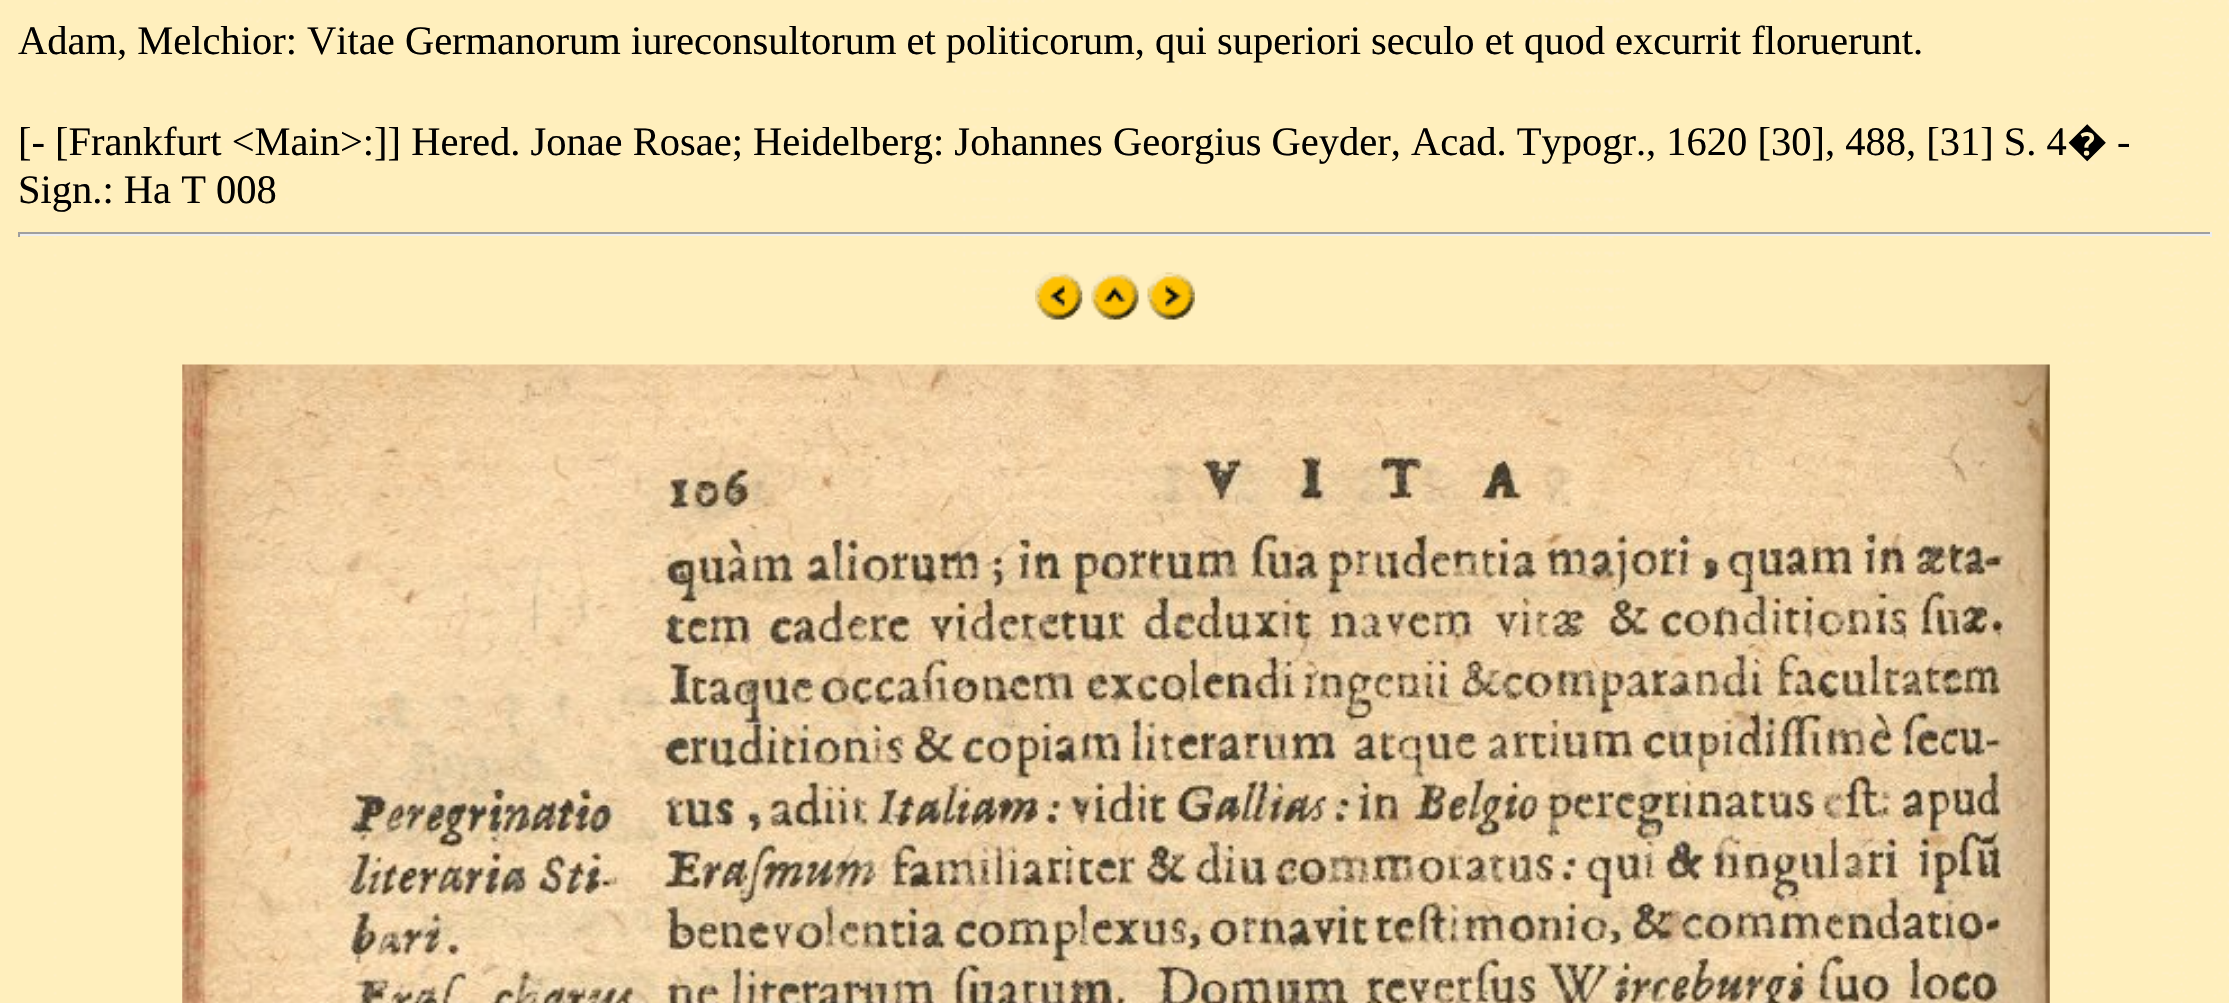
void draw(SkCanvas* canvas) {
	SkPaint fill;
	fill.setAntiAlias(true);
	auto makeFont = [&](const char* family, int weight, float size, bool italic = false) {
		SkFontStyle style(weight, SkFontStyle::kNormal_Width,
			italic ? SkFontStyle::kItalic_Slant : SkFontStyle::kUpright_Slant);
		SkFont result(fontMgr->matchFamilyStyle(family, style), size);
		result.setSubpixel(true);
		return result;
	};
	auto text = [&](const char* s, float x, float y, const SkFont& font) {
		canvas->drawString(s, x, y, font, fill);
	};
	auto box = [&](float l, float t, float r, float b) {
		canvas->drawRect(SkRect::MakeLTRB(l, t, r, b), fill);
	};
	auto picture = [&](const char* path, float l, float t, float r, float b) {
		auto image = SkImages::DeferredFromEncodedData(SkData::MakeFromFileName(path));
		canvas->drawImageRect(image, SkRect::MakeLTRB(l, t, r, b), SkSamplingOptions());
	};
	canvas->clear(0xFFFFFFFF);
	picture("image0.png", 0, 0, 2229, 1003);
	fill.setColor(0xFF9F9F9F);
	box(18, 232, 2212, 234);
	fill.setColor(0xFFEEEEEE);
	box(2210, 232, 2212, 237);
	box(18, 234, 2212, 236);
	fill.setColor(0xFF9F9F9F);
	box(18, 232, 20, 237);
	picture("image1.png", 1035, 272, 1083, 320);
	picture("image2.png", 1091, 272, 1139, 320);
	picture("image3.png", 1147, 272, 1195, 320);
	picture("image4.png", 182, 364, 2050, 1003);
	auto font1 = makeFont("Liberation Serif", 400, 40.5f);
	fill.setColor(0xFF000000);
	text("Adam, Melchior: Vitae Germanorum iureconsultorum et politicorum, qui superiori seculo et quod excurrit floruerunt.", 18, 54, font1);
	text("[- [Frankfurt <Main>:]] Hered. Jonae Rosae; Heidelberg: Johannes Georgius Geyder, Acad. Typogr., 1620 [30], 488, [31] S. 4", 18, 155, font1);
	auto font2 = makeFont("Noto Sans", 400, 40.5f);
	text("�", 2067, 155, font2);
	text("-", 2117, 155, font1);
	text("Sign.: Ha T 008", 18, 203, font1);
}
